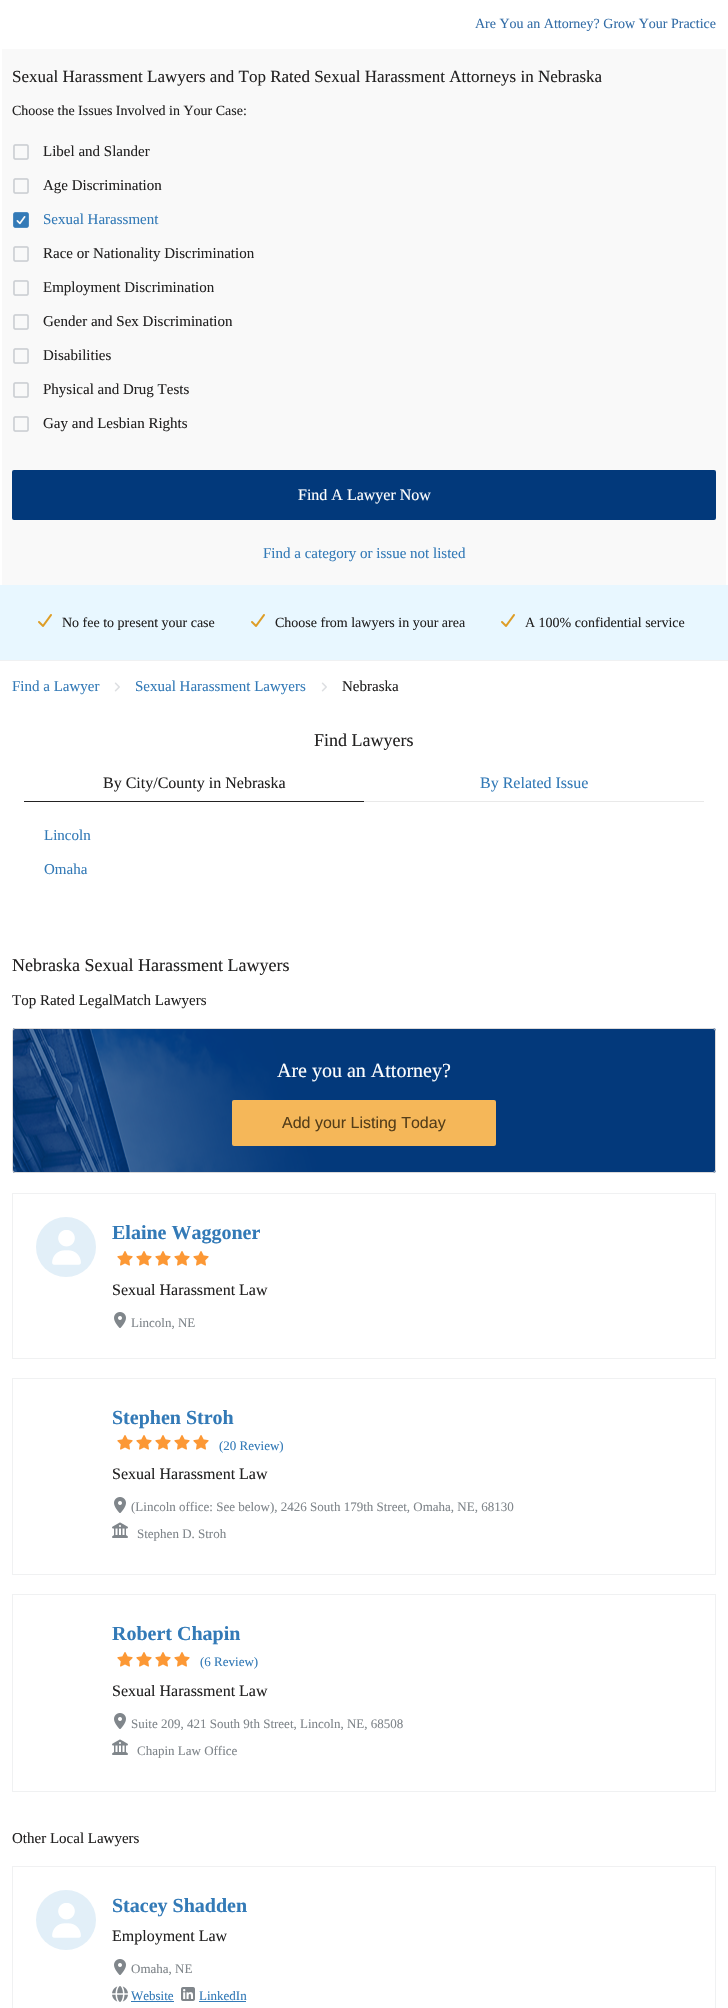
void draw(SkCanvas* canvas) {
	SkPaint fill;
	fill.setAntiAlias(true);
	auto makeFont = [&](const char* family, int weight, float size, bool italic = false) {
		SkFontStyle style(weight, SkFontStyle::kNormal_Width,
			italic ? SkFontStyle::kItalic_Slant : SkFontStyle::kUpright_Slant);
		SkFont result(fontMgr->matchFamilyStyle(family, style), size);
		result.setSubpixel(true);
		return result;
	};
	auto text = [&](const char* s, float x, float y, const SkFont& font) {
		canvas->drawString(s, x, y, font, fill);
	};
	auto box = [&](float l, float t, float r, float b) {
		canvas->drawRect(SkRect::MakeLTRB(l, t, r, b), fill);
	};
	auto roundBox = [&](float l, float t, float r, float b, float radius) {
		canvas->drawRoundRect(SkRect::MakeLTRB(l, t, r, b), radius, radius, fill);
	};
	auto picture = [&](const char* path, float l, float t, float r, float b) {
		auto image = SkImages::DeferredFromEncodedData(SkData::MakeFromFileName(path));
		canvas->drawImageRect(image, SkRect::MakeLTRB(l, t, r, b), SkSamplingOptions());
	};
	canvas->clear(0xFFFFFFFF);
	fill.setColor(0xFFF9F9F9);
	box(2, 49, 726, 585);
	picture("image0.png", 13, 144, 29, 160);
	picture("image0.png", 13, 178, 29, 194);
	picture("image1.png", 13, 212, 29, 228);
	picture("image0.png", 13, 246, 29, 262);
	picture("image0.png", 13, 280, 29, 296);
	picture("image0.png", 13, 314, 29, 330);
	picture("image0.png", 13, 348, 29, 364);
	picture("image0.png", 13, 382, 29, 398);
	picture("image0.png", 13, 416, 29, 432);
	fill.setColor(0xFF02397B);
	roundBox(12, 470, 716, 520, 2);
	fill.setColor(0xFFE8F7FF);
	box(0, 585, 728, 660);
	fill.setColor(0xFFF0F1F2);
	box(0, 660, 728, 661);
	picture("image2.png", 38, 614, 52, 627);
	picture("image2.png", 251, 614, 265, 627);
	picture("image2.png", 501, 614, 515, 627);
	picture("image3.png", 114, 682, 120, 692);
	picture("image3.png", 321, 682, 327, 692);
	fill.setColor(0xFFE9E9E9);
	box(364, 801, 704, 802);
	fill.setColor(0xFF232222);
	box(24, 801, 364, 802);
	picture("image4.png", 13, 1028, 716, 1173);
	fill.setStyle(SkPaint::kStroke_Style);
	fill.setStrokeWidth(1);
	fill.setColor(0xFFDCDADA);
	canvas->drawRoundRect(SkRect::MakeLTRB(12.5f, 1028.5f, 715.5f, 1172.5f), 2.5f, 2.5f, fill);
	fill.setStyle(SkPaint::kFill_Style);
	fill.setColor(0xFFF5B759);
	roundBox(232, 1100, 496, 1146, 2);
	fill.setStyle(SkPaint::kStroke_Style);
	fill.setColor(0xFFF0F1F2);
	canvas->drawRect(SkRect::MakeLTRB(12.5f, 1193.5f, 715.5f, 1358.5f), fill);
	fill.setStyle(SkPaint::kFill_Style);
	fill.setColor(0xFFE2EFF8);
	canvas->drawCircle(66, 1247, 30, fill);
	picture("image5.png", 52, 1230, 81, 1265);
	picture("image6.png", 117, 1251, 133, 1266);
	picture("image6.png", 136, 1251, 152, 1266);
	picture("image6.png", 155, 1251, 171, 1266);
	picture("image6.png", 174, 1251, 190, 1266);
	picture("image6.png", 193, 1251, 209, 1266);
	picture("image7.png", 114, 1312, 126, 1328);
	fill.setStyle(SkPaint::kStroke_Style);
	fill.setColor(0xFFF0F1F2);
	canvas->drawRect(SkRect::MakeLTRB(12.5f, 1378.5f, 715.5f, 1574.5f), fill);
	picture("image6.png", 117, 1435, 133, 1450);
	picture("image6.png", 136, 1435, 152, 1450);
	picture("image6.png", 155, 1435, 171, 1450);
	picture("image6.png", 174, 1435, 190, 1450);
	picture("image6.png", 193, 1435, 209, 1450);
	picture("image7.png", 114, 1497, 126, 1513);
	picture("image8.png", 112, 1522, 128, 1538);
	canvas->drawRect(SkRect::MakeLTRB(12.5f, 1594.5f, 715.5f, 1791.5f), fill);
	picture("image6.png", 117, 1652, 133, 1667);
	picture("image6.png", 136, 1652, 152, 1667);
	picture("image6.png", 155, 1652, 171, 1667);
	picture("image6.png", 174, 1652, 190, 1667);
	picture("image7.png", 114, 1713, 126, 1729);
	picture("image8.png", 112, 1739, 128, 1755);
	canvas->drawRect(SkRect::MakeLTRB(12.5f, 1866.5f, 715.5f, 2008.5f), fill);
	fill.setStyle(SkPaint::kFill_Style);
	fill.setColor(0xFFE2EFF8);
	canvas->drawCircle(66, 1920, 30, fill);
	picture("image5.png", 52, 1903, 81, 1938);
	picture("image7.png", 114, 1959, 126, 1975);
	picture("image9.png", 112, 1986, 128, 2002);
	fill.setColor(0xFF337AB7);
	box(131, 2001, 174, 2002);
	picture("image10.png", 181, 1987, 195, 2001);
	box(199, 2001, 246, 2002);
	auto font1 = makeFont("Liberation Serif", 400, 14);
	fill.setColor(0xFF336DA7);
	text("Are You an Attorney? Grow Your Practice", 475, 28, font1);
	auto font2 = makeFont("Liberation Serif", 400, 17);
	fill.setColor(0xFF232222);
	text("Sexual Harassment Lawyers and Top Rated Sexual Harassment Attorneys in Nebraska", 12, 82, font2);
	text("Choose the Issues Involved in Your Case:", 12, 115, font1);
	auto font3 = makeFont("Liberation Serif", 400, 15);
	text("Libel and Slander", 43, 156, font3);
	text("Age Discrimination", 43, 190, font3);
	fill.setColor(0xFF337AB7);
	text("Sexual Harassment", 43, 224, font3);
	fill.setColor(0xFF232222);
	text("Race or Nationality Discrimination", 43, 258, font3);
	text("Employment Discrimination", 43, 292, font3);
	text("Gender and Sex Discrimination", 43, 326, font3);
	text("Disabilities", 43, 360, font3);
	text("Physical and Drug Tests", 43, 394, font3);
	text("Gay and Lesbian Rights", 43, 428, font3);
	auto font4 = makeFont("Liberation Serif", 400, 16);
	fill.setColor(0xFFFFFFFF);
	text("Find A Lawyer Now", 298, 500, font4);
	fill.setColor(0xFF337AB7);
	text("Find a category or issue not listed", 263, 558, font3);
	fill.setColor(0xFF232222);
	text("No fee to present your case", 62, 627, font1);
	text("Choose from lawyers in your area", 275, 627, font1);
	text("A 100% confidential service", 525, 627, font1);
	fill.setColor(0xFF337AB7);
	text("Find a Lawyer", 12, 691, font3);
	text("Sexual Harassment Lawyers", 135, 691, font3);
	fill.setColor(0xFF232222);
	text("Nebraska", 342, 691, font3);
	auto font5 = makeFont("Liberation Serif", 400, 18);
	text("Find Lawyers", 314, 746, font5);
	text("By City/County in Nebraska", 103, 788, font4);
	fill.setColor(0xFF337AB7);
	text("By Related Issue", 480, 788, font4);
	text("Lincoln", 44, 840, font3);
	text("Omaha", 44, 874, font3);
	fill.setColor(0xFF232222);
	text("Nebraska Sexual Harassment Lawyers", 12, 971, font5);
	text("Top Rated LegalMatch Lawyers", 12, 1005, font3);
	auto font6 = makeFont("Liberation Serif", 400, 20);
	fill.setColor(0xFFFFFFFF);
	text("Are you an Attorney?", 277, 1077, font6);
	auto font7 = makeFont("Liberation Sans", 400, 16);
	fill.setColor(0xFF553E19);
	text("Add your Listing Today", 282, 1128, font7);
	auto font8 = makeFont("Liberation Serif", 700, 20);
	fill.setColor(0xFF337AB7);
	text("Elaine Waggoner", 112, 1239, font8);
	fill.setColor(0xFF232222);
	text("Sexual Harassment Law", 112, 1295, font4);
	auto font9 = makeFont("Liberation Serif", 400, 13);
	fill.setColor(0xFF80868B);
	text("Lincoln, NE", 131, 1327, font9);
	fill.setColor(0xFF337AB7);
	text("Stephen Stroh", 112, 1424, font8);
	text("(20 Review)", 219, 1450, font9);
	fill.setColor(0xFF232222);
	text("Sexual Harassment Law", 112, 1479, font4);
	fill.setColor(0xFF80868B);
	text("(Lincoln office: See below), 2426 South 179th Street, Omaha, NE, 68130", 131, 1511, font9);
	text("Stephen D. Stroh", 137, 1538, font9);
	fill.setColor(0xFF337AB7);
	text("Robert Chapin", 112, 1640, font8);
	text("(6 Review)", 200, 1666, font9);
	fill.setColor(0xFF232222);
	text("Sexual Harassment Law", 112, 1696, font4);
	fill.setColor(0xFF80868B);
	text("Suite 209, 421 South 9th Street, Lincoln, NE, 68508", 131, 1728, font9);
	text("Chapin Law Office", 137, 1755, font9);
	fill.setColor(0xFF232222);
	text("Other Local Lawyers", 12, 1843, font3);
	fill.setColor(0xFF337AB7);
	text("Stacey Shadden", 112, 1912, font8);
	fill.setColor(0xFF232222);
	text("Employment Law", 112, 1941, font4);
	fill.setColor(0xFF80868B);
	text("Omaha, NE", 131, 1973, font9);
	fill.setColor(0xFF337AB7);
	text("Website", 131, 2000, font9);
	text("LinkedIn", 199, 2000, font9);
}
